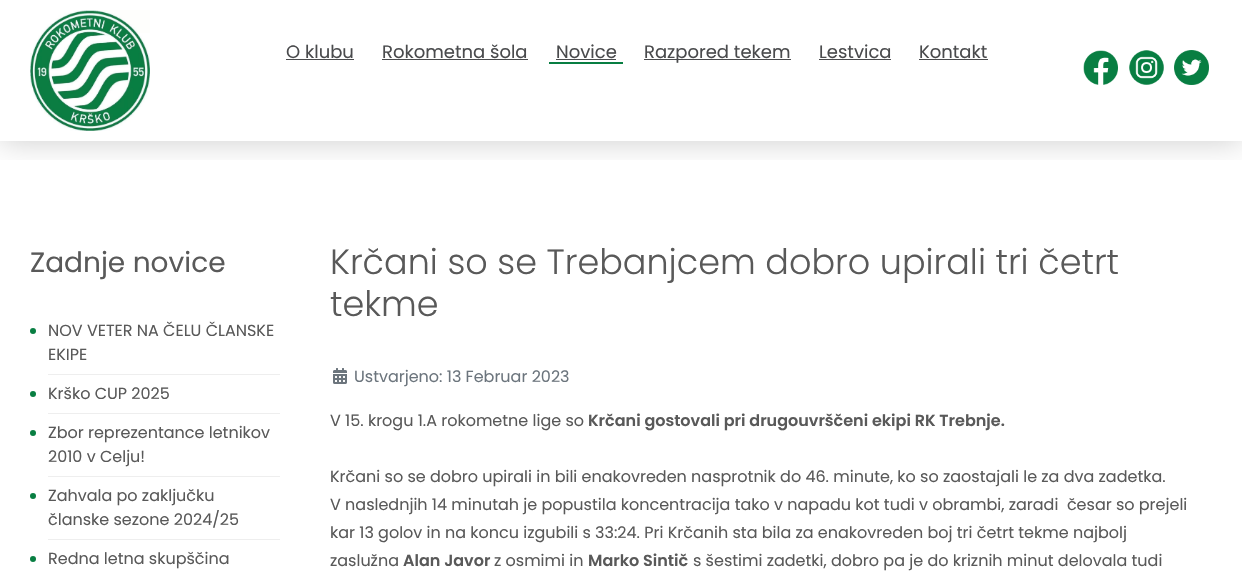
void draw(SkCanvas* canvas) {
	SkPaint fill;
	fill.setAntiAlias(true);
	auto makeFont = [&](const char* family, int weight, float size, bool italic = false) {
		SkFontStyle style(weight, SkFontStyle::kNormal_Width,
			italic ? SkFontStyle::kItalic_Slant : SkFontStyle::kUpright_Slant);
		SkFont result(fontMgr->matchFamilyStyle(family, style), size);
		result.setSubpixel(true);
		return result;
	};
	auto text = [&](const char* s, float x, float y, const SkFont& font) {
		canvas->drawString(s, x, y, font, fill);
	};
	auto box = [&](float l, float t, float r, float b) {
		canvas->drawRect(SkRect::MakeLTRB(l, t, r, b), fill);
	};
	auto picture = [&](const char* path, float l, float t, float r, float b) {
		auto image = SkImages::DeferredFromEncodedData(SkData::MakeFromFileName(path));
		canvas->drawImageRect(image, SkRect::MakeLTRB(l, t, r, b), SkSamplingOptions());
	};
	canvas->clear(0xFFFFFFFF);
	canvas->save();
	canvas->clipRect(SkRect::MakeLTRB(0, 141, 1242, 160));
	fill.setColor(0x33000000);
	fill.setMaskFilter(SkMaskFilter::MakeBlur(kNormal_SkBlurStyle, 15));
	canvas->drawRect(SkRect::MakeLTRB(0, 0, 1242, 141), fill);
	fill.setMaskFilter(nullptr);
	canvas->restore();
	picture("image0.png", 30, 10, 150, 131);
	fill.setColor(0xFF4A4B4D);
	box(286, 59, 354, 60);
	box(382, 59, 528, 60);
	fill.setColor(0xFF087E42);
	box(549, 62, 623, 64);
	fill.setColor(0xFF4A4B4D);
	box(556, 59, 616, 60);
	box(644, 59, 791, 60);
	box(819, 59, 891, 60);
	box(919, 59, 988, 60);
	picture("image1.png", 1083, 50, 1118, 85);
	picture("image2.png", 1129, 50, 1164, 85);
	picture("image3.png", 1174, 50, 1209, 85);
	fill.setColor(0xFF087E42);
	canvas->drawCircle(33, 331, 3, fill);
	fill.setColor(0xFFEEEEEE);
	box(48, 374, 280, 375);
	fill.setColor(0xFF087E42);
	canvas->drawCircle(33, 394, 3, fill);
	fill.setColor(0xFFEEEEEE);
	box(48, 413, 280, 414);
	fill.setColor(0xFF087E42);
	canvas->drawCircle(33, 433, 3, fill);
	fill.setColor(0xFFEEEEEE);
	box(48, 476, 280, 477);
	fill.setColor(0xFF087E42);
	canvas->drawCircle(33, 496, 3, fill);
	fill.setColor(0xFFEEEEEE);
	box(48, 539, 280, 540);
	fill.setColor(0xFF087E42);
	canvas->drawCircle(33, 559, 3, fill);
	picture("image4.png", 333, 368, 347, 384);
	auto font1 = makeFont("Poppins", 400, 18);
	fill.setColor(0xFF4A4B4D);
	text("O klubu", 286, 58, font1);
	text("Rokometna šola", 382, 58, font1);
	text("Novice", 556, 58, font1);
	text("Razpored tekem", 644, 58, font1);
	text("Lestvica", 819, 58, font1);
	text("Kontakt", 919, 58, font1);
	auto font2 = makeFont("Poppins", 400, 28);
	fill.setColor(0xFF595959);
	text("Zadnje novice", 30, 272, font2);
	auto font3 = makeFont("Poppins", 400, 16);
	text("NOV VETER NA ČELU ČLANSKE", 48, 336, font3);
	text("EKIPE", 48, 360, font3);
	text("Krško CUP 2025", 48, 399, font3);
	text("Zbor reprezentance letnikov", 48, 438, font3);
	text("2010 v Celju!", 48, 462, font3);
	text("Zahvala po zaključku", 48, 501, font3);
	text("članske sezone 2024/25", 48, 525, font3);
	text("Redna letna skupščina", 48, 564, font3);
	auto font4 = makeFont("Poppins", 300, 35);
	text("Krčani so se Trebanjcem dobro upirali tri četrt", 330, 274, font4);
	text("tekme", 330, 316, font4);
	fill.setColor(0xFF6C757D);
	text("Ustvarjeno: 13 Februar 2023", 354, 382, font3);
	fill.setColor(0xFF595959);
	text("V 15. krogu 1.A rokometne lige so", 330, 426, font3);
	auto font5 = makeFont("Poppins", 600, 16);
	text("Krčani gostovali pri drugouvrščeni ekipi RK Trebnje.", 588, 426, font5);
	text("Krčani so se dobro upirali in bili enakovreden nasprotnik do 46. minute, ko so zaostajali le za dva zadetka.", 330, 482, font3);
	text("V naslednjih 14 minutah je popustila koncentracija tako v napadu kot tudi v obrambi, zaradi  česar so prejeli", 330, 510, font3);
	text("kar 13 golov in na koncu izgubili s 33:24. Pri Krčanih sta bila za enakovreden boj tri četrt tekme najbolj", 330, 538, font3);
	text("zaslužna", 330, 566, font3);
	text("Alan Javor", 403, 566, font5);
	text("z osmimi in", 494, 566, font3);
	text("Marko Sintič", 588, 566, font5);
	text("s šestimi zadetki, dobro pa je do kriznih minut delovala tudi", 693, 566, font3);
}
